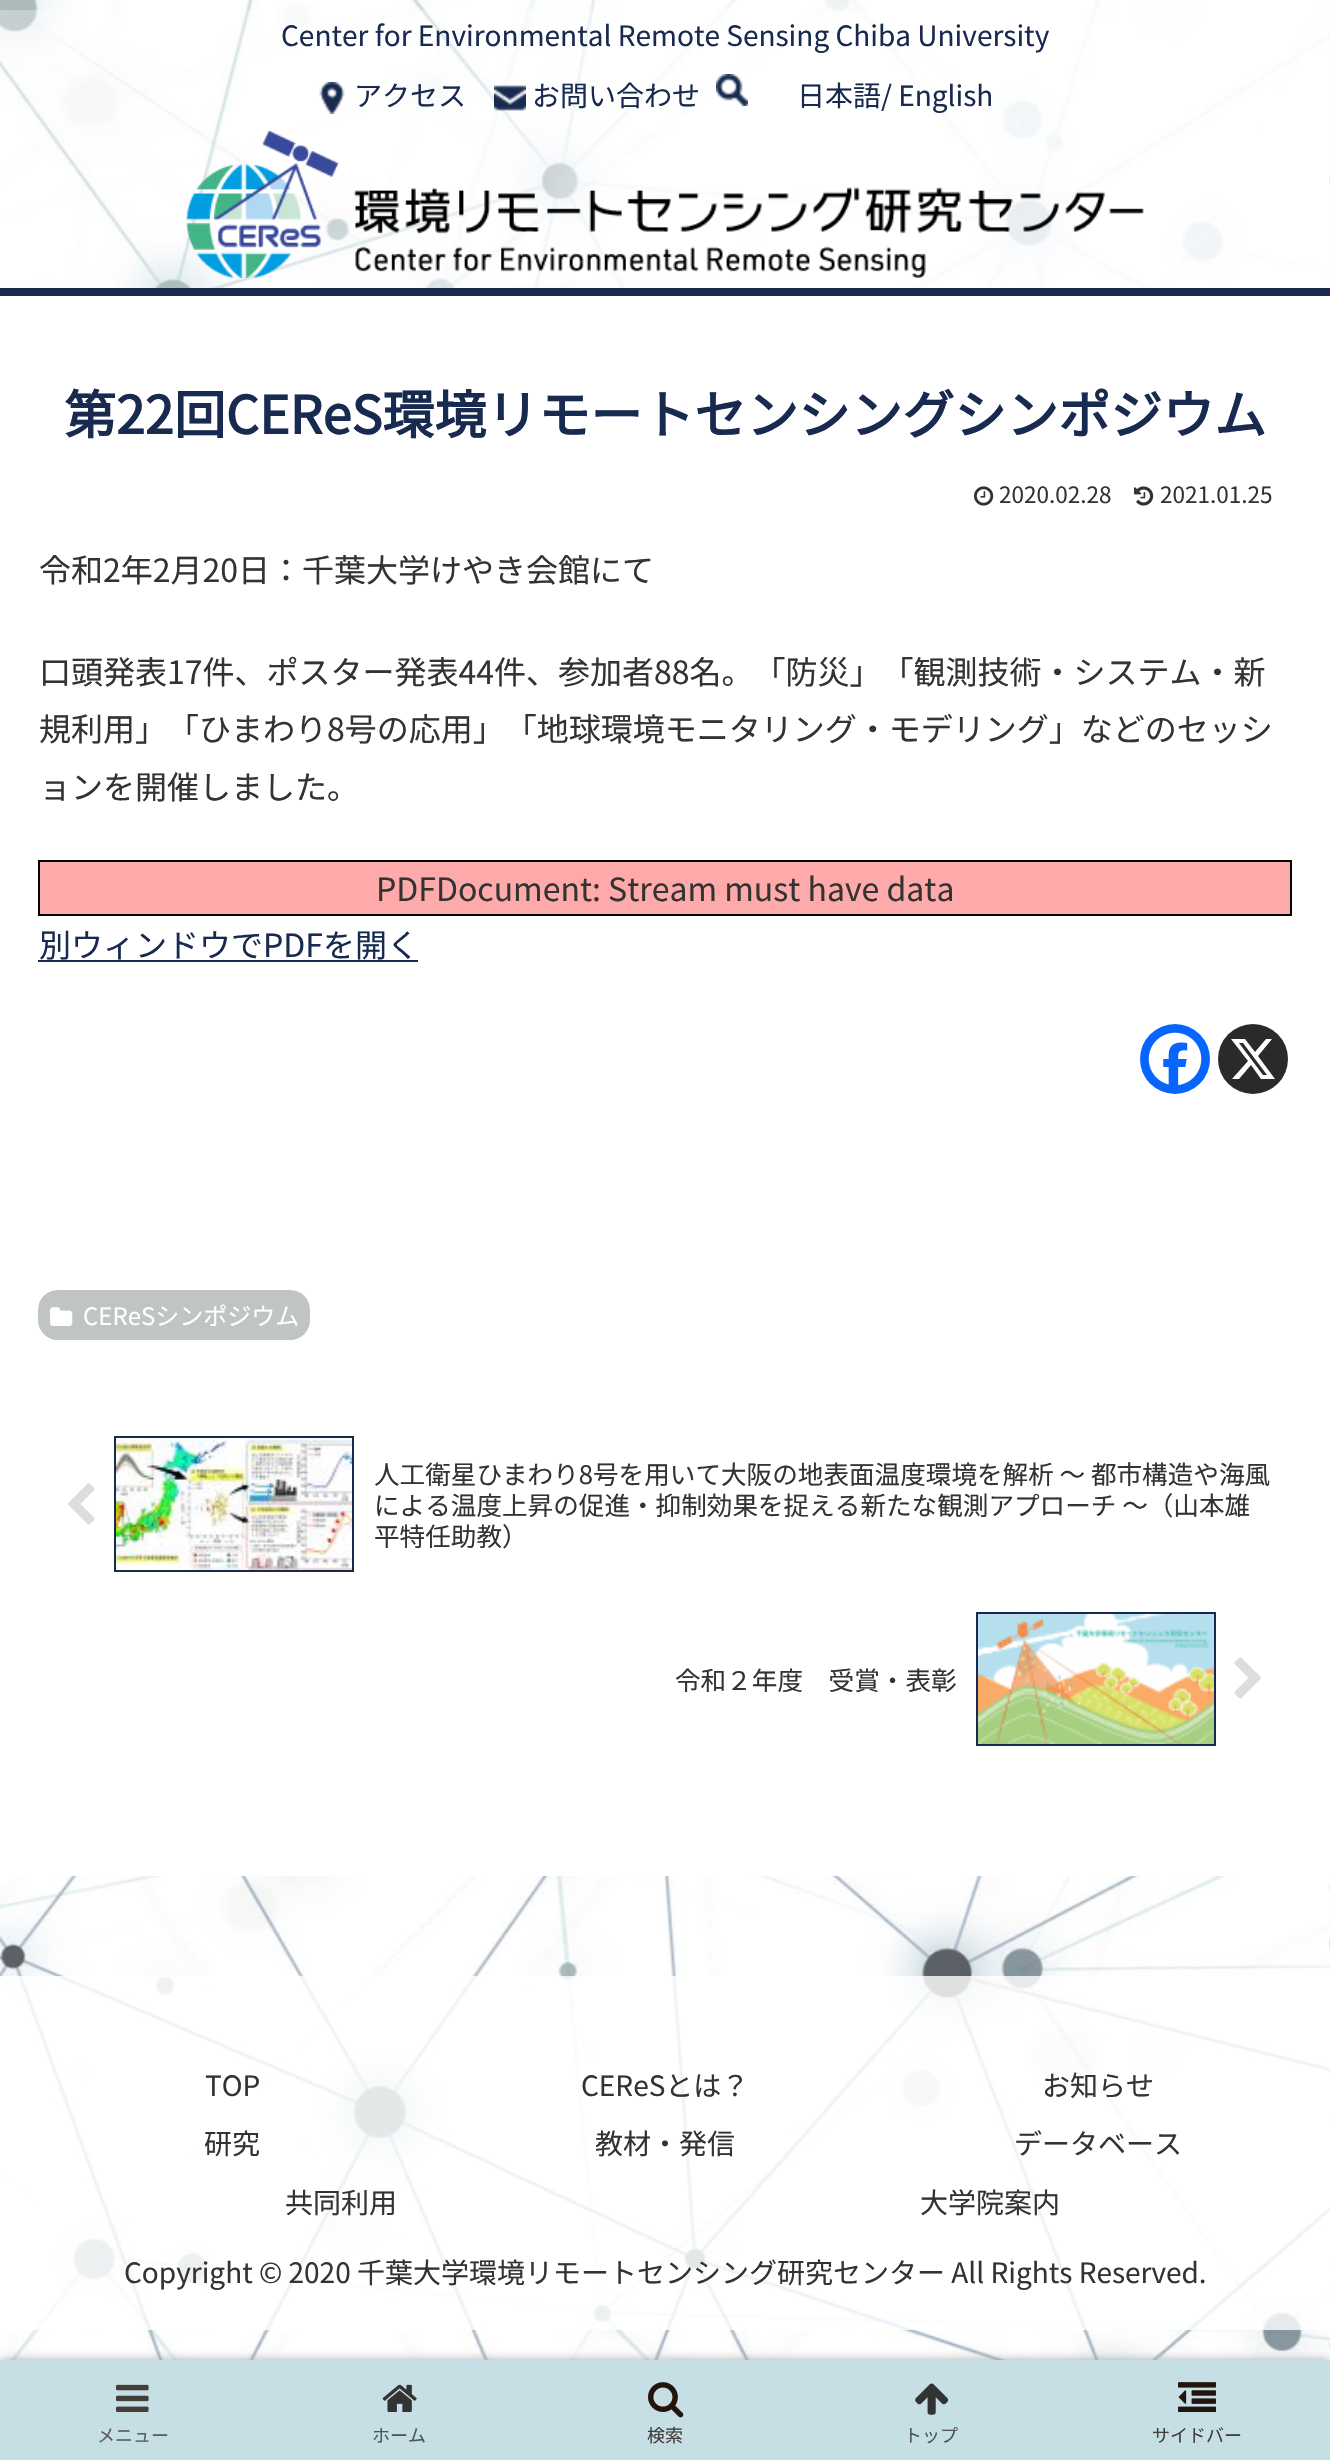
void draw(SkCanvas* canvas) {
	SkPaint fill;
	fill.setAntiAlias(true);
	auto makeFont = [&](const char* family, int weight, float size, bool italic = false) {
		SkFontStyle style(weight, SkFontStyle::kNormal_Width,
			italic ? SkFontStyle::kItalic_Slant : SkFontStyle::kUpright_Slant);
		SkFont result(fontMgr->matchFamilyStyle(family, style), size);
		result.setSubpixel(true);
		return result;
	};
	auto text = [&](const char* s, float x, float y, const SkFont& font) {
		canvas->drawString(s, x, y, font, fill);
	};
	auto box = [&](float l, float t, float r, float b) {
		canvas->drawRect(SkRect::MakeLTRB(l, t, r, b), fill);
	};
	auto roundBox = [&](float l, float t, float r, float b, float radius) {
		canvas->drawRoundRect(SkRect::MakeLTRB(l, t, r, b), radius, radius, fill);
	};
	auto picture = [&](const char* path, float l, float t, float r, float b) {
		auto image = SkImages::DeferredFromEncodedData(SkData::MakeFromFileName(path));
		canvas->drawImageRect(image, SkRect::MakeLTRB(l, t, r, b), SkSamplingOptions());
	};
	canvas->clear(0xFFFFFFFF);
	picture("image0.png", 1329, 0, 1330, 2360);
	picture("image1.png", 0, 0, 1330, 2360);
	fill.setColor(0x4DFFFFFF);
	box(0, 10, 1330, 288);
	picture("image2.png", 319, 82, 345, 114);
	picture("image3.png", 494, 85, 526, 111);
	picture("image4.png", 716, 74, 748, 106);
	picture("image5.png", 186, 130, 1144, 278);
	fill.setColor(0xFF192A50);
	box(0, 288, 1330, 296);
	fill.setColor(0xFFFFFFFF);
	box(0, 296, 1330, 1876);
	picture("image6.png", 974, 486, 994, 506);
	picture("image7.png", 1134, 486, 1154, 506);
	fill.setStyle(SkPaint::kStroke_Style);
	fill.setStrokeWidth(2);
	fill.setColor(0xFF000000);
	canvas->drawRect(SkRect::MakeLTRB(39, 861, 1291, 915), fill);
	fill.setStyle(SkPaint::kFill_Style);
	fill.setColor(0xFFFFAAAA);
	box(40, 862, 1290, 914);
	fill.setColor(0xFF192A50);
	box(38, 960, 418, 962);
	fill.setColor(0xFF0765FE);
	canvas->drawCircle(1175, 1059, 35, fill);
	picture("image8.png", 1148, 1032, 1202, 1085);
	fill.setColor(0xFF2A2A2A);
	canvas->drawCircle(1253, 1059, 35, fill);
	fill.setColor(0xFFFFFFFF);
	canvas->drawPath(SkPathBuilder().moveTo(1266, 1039).lineTo(1272, 1039).lineTo(1258, 1056).lineTo(1275, 1079).lineTo(1261, 1079).lineTo(1251, 1065).lineTo(1239, 1079).lineTo(1232, 1079).lineTo(1248, 1061).lineTo(1231, 1039).lineTo(1245, 1039).lineTo(1255, 1052).close().moveTo(1263, 1075).lineTo(1267, 1075).lineTo(1243, 1043).lineTo(1239, 1043).close().detach(), fill);
	fill.setColor(0xFFC0C5C2);
	roundBox(38, 1290, 310, 1340, 20);
	picture("image9.png", 50, 1307, 73, 1326);
	picture("image10.png", 68, 1483, 95, 1525);
	fill.setStyle(SkPaint::kStroke_Style);
	fill.setColor(0xFF192A50);
	canvas->drawRect(SkRect::MakeLTRB(115, 1437, 353, 1571), fill);
	picture("image11.png", 116, 1438, 352, 1570);
	canvas->drawRect(SkRect::MakeLTRB(977, 1613, 1215, 1745), fill);
	picture("image12.png", 978, 1614, 1214, 1744);
	picture("image13.png", 1234, 1657, 1261, 1699);
	fill.setStyle(SkPaint::kFill_Style);
	fill.setColor(0xCCFFFFFF);
	box(0, 1976, 1330, 2330);
	fill.setColor(0xFFA9A9A9);
	fill.setMaskFilter(SkMaskFilter::MakeBlur(kNormal_SkBlurStyle, 5));
	canvas->drawRect(SkRect::MakeLTRB(0, 2360, 1330, 2460), fill);
	fill.setMaskFilter(nullptr);
	fill.setColor(0xFFC5DFE5);
	box(0, 2360, 1330, 2460);
	picture("image14.png", 116, 2384, 149, 2412);
	picture("image15.png", 382, 2384, 417, 2412);
	picture("image16.png", 648, 2382, 684, 2418);
	picture("image17.png", 915, 2383, 949, 2415);
	picture("image18.png", 1178, 2382, 1216, 2412);
	auto font1 = makeFont("Noto Sans JP", 100, 28);
	fill.setColor(0xFF192A50);
	text("Center for Environmental Remote Sensing Chiba University", 281, 46, font1);
	text("アクセス", 354, 106, font1);
	text("お問い合わせ", 532, 106, font1);
	text("日本語/ English", 797, 106, font1);
	auto font2 = makeFont("Noto Sans JP", 700, 52);
	text("第22回CEReS環境リモートセンシングシンポジウム", 64, 434, font2);
	auto font3 = makeFont("Noto Sans JP", 100, 22.5f);
	fill.setColor(0xFF333333);
	text("2020.02.28", 999, 503, font3);
	text("2021.01.25", 1160, 503, font3);
	auto font4 = makeFont("Noto Sans JP", 100, 32);
	text("令和2年2月20日：千葉大学けやき会館にて", 39, 582, font4);
	text("口頭発表17件、ポスター発表44件、参加者88名。「防災」「観測技術・システム・新", 39, 684, font4);
	text("規利用」「ひまわり8号の応用」「地球環境モニタリング・モデリング」などのセッシ", 39, 741, font4);
	text("ョンを開催しました。", 39, 799, font4);
	text("PDFDocument: Stream must have data", 376, 901, font4);
	fill.setColor(0xFF192A50);
	text("別ウィンドウでPDFを開く", 39, 957, font4);
	auto font5 = makeFont("Noto Sans JP", 100, 24);
	fill.setColor(0xFFFFFFFF);
	text("CEReSシンポジウム", 83, 1325, font5);
	auto font6 = makeFont("Noto Sans JP", 100, 25.6f);
	fill.setColor(0xFF333333);
	text("人工衛星ひまわり8号を用いて大阪の地表面温度環境を解析 ～ 都市構造や海風", 374, 1484, font6);
	text("による温度上昇の促進・抑制効果を捉える新たな観測アプローチ ～（山本雄", 374, 1515, font6);
	text("平特任助教）", 374, 1546, font6);
	text("令和２年度　受賞・表彰", 675, 1690, font6);
	text("TOP", 205, 2096, font1);
	text("CEReSとは？", 581, 2096, font1);
	text("お知らせ", 1042, 2096, font1);
	text("研究", 204, 2154, font1);
	text("教材・発信", 595, 2154, font1);
	text("データベース", 1014, 2154, font1);
	text("共同利用", 285, 2213, font1);
	text("大学院案内", 920, 2213, font1);
	text("Copyright © 2020 千葉大学環境リモートセンシング研究センター All Rights Reserved.", 124, 2283, font1);
	auto font7 = makeFont("Noto Sans JP", 100, 18);
	fill.setColor(0xFF5E5D5B);
	text("メニュー", 97, 2442, font7);
	fill.setColor(0xFF505557);
	text("ホーム", 372, 2442, font7);
	fill.setColor(0xFF443D39);
	text("検索", 647, 2442, font7);
	fill.setColor(0xFF505557);
	text("トップ", 904, 2442, font7);
	fill.setColor(0xFF443D39);
	text("サイドバー", 1152, 2442, font7);
}
